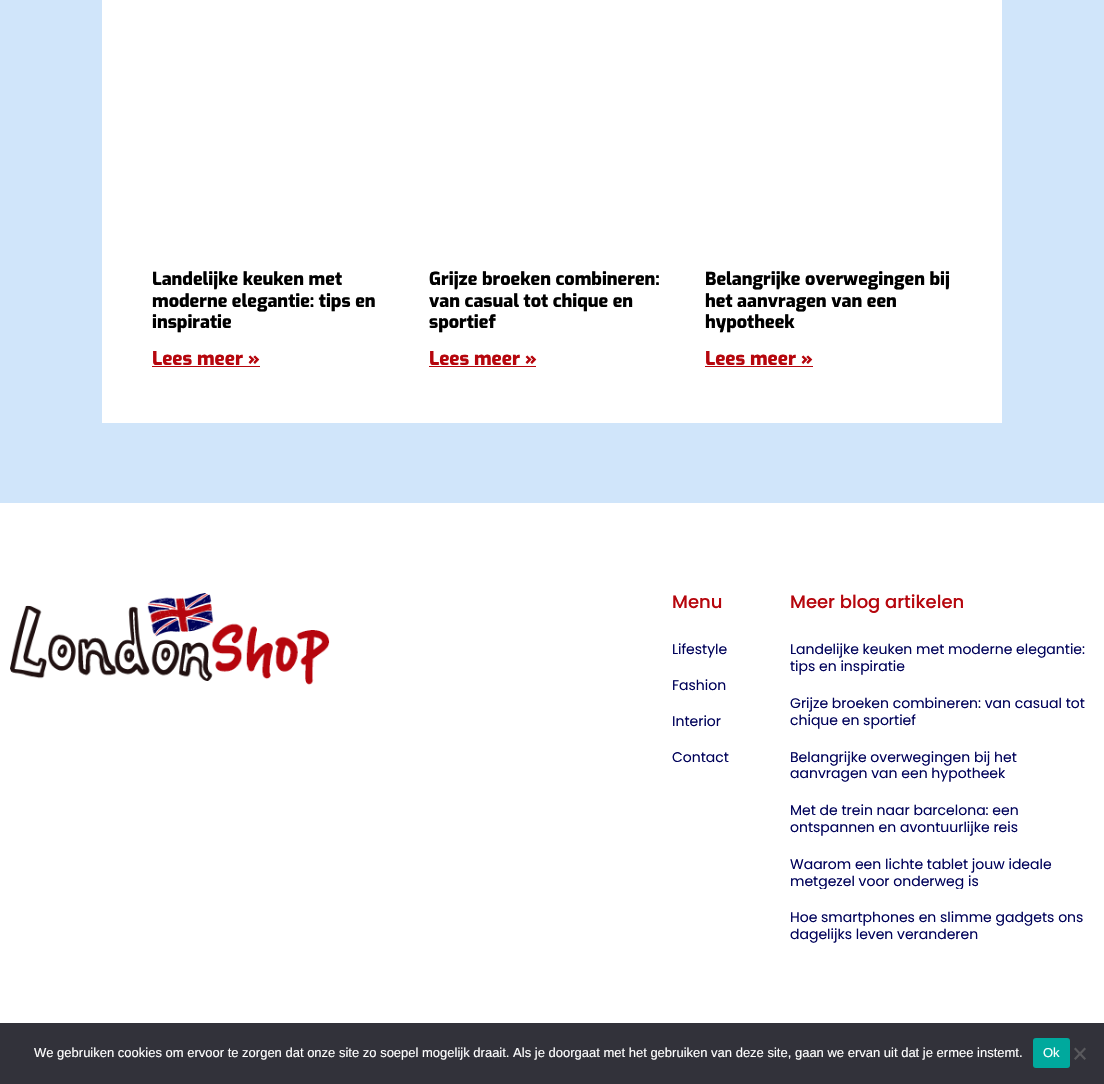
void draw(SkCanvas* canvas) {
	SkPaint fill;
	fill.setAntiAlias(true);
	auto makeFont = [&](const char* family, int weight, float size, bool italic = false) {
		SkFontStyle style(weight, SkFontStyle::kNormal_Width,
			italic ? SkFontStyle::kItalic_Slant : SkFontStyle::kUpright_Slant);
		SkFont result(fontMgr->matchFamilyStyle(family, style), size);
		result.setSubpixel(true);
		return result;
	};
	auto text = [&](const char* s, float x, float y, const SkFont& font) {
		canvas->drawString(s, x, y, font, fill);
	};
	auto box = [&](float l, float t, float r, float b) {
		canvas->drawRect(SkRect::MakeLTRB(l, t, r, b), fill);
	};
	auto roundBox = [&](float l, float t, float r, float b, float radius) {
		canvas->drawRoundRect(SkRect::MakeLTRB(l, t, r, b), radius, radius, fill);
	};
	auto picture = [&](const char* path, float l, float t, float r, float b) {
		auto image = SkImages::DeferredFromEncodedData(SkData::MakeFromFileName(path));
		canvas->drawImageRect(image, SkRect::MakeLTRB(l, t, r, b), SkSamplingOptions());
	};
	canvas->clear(0xFFFFFFFF);
	fill.setColor(0xFFD0E5FA);
	box(0, 0, 1104, 503);
	fill.setColor(0xFFFFFFFF);
	box(102, 0, 1002, 423);
	fill.setColor(0xFFB6060D);
	box(152, 366, 260, 367);
	box(429, 366, 536, 367);
	box(705, 366, 813, 367);
	picture("image0.png", 10, 593, 330, 685);
	fill.setColor(0xFF32323A);
	box(0, 1023, 1104, 1084);
	fill.setColor(0xFF00A99D);
	roundBox(1033, 1038, 1070, 1068, 3);
	fill.setColor(0xFF59595D);
	canvas->drawPath(SkPathBuilder().moveTo(1084.5f, 1047.5f).lineTo(1086, 1049).lineTo(1075.5f, 1060).lineTo(1074, 1058.5f).close().detach(), fill);
	canvas->drawPath(SkPathBuilder().moveTo(1074, 1049).lineTo(1075.5f, 1047.5f).lineTo(1086, 1058.5f).lineTo(1084.5f, 1060).close().detach(), fill);
	auto font1 = makeFont("Exo", 800, 18);
	fill.setColor(0xFF000000);
	text("Landelijke keuken met", 152, 285, font1);
	text("moderne elegantie: tips en", 152, 307, font1);
	text("inspiratie", 152, 328, font1);
	auto font2 = makeFont("Exo", 800, 19);
	fill.setColor(0xFFB6060D);
	text("Lees meer »", 152, 365, font2);
	fill.setColor(0xFF000000);
	text("Grijze broeken combineren:", 429, 285, font1);
	text("van casual tot chique en", 429, 307, font1);
	text("sportief", 429, 328, font1);
	fill.setColor(0xFFB6060D);
	text("Lees meer »", 429, 365, font2);
	fill.setColor(0xFF000000);
	text("Belangrijke overwegingen bij", 705, 285, font1);
	text("het aanvragen van een", 705, 307, font1);
	text("hypotheek", 705, 328, font1);
	fill.setColor(0xFFB6060D);
	text("Lees meer »", 705, 365, font2);
	auto font3 = makeFont("Poppins", 500, 18);
	text("Menu", 672, 608, font3);
	auto font4 = makeFont("Poppins", 400, 14);
	fill.setColor(0xFF00025A);
	text("Lifestyle", 672, 654, font4);
	text("Fashion", 672, 690, font4);
	text("Interior", 672, 726, font4);
	text("Contact", 672, 762, font4);
	fill.setColor(0xFFB6060D);
	text("Meer blog artikelen", 790, 608, font3);
	fill.setColor(0xFF00025A);
	text("Landelijke keuken met moderne elegantie:", 790, 654, font4);
	text("tips en inspiratie", 790, 671, font4);
	text("Grijze broeken combineren: van casual tot", 790, 708, font4);
	text("chique en sportief", 790, 725, font4);
	text("Belangrijke overwegingen bij het", 790, 762, font4);
	text("aanvragen van een hypotheek", 790, 778, font4);
	text("Met de trein naar barcelona: een", 790, 815, font4);
	text("ontspannen en avontuurlijke reis", 790, 832, font4);
	text("Waarom een lichte tablet jouw ideale", 790, 869, font4);
	canvas->save();
	canvas->clipRect(SkRect::MakeLTRB(790, 856, 1094, 889));
	text("metgezel voor onderweg is", 790, 886, font4);
	canvas->restore();
	text("Hoe smartphones en slimme gadgets ons", 790, 922, font4);
	text("dagelijks leven veranderen", 790, 939, font4);
	auto font5 = makeFont("Liberation Sans", 400, 13);
	fill.setColor(0xFFFFFFFF);
	text("We gebruiken cookies om ervoor te zorgen dat onze site zo soepel mogelijk draait. Als je doorgaat met het gebruiken van deze site, gaan we ervan uit dat je ermee instemt.", 34, 1057, font5);
	text("Ok", 1043, 1057, font5);
}
